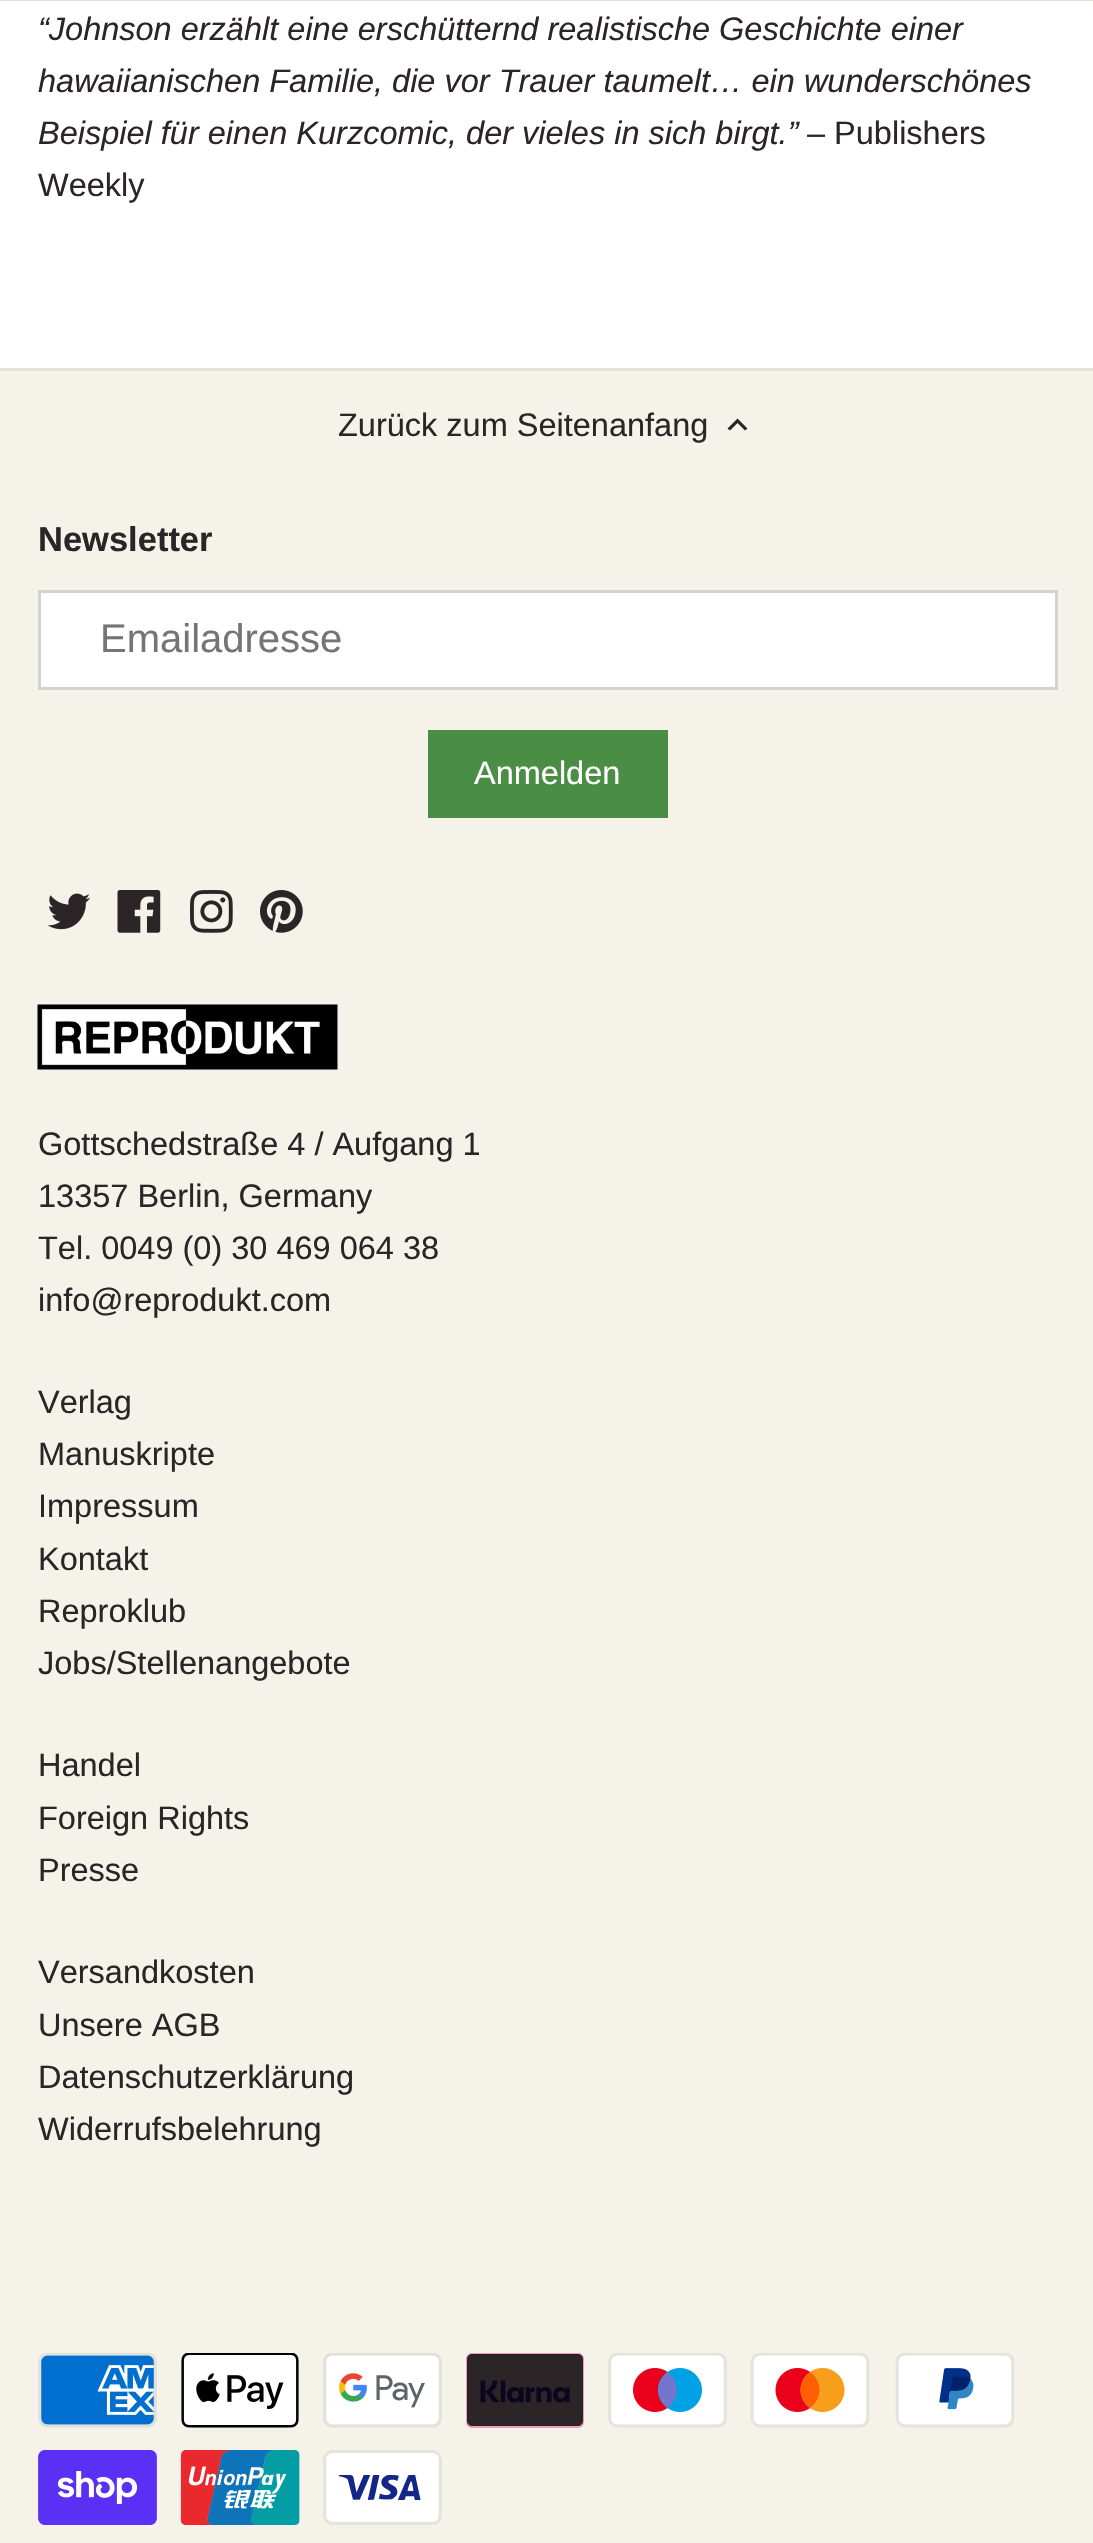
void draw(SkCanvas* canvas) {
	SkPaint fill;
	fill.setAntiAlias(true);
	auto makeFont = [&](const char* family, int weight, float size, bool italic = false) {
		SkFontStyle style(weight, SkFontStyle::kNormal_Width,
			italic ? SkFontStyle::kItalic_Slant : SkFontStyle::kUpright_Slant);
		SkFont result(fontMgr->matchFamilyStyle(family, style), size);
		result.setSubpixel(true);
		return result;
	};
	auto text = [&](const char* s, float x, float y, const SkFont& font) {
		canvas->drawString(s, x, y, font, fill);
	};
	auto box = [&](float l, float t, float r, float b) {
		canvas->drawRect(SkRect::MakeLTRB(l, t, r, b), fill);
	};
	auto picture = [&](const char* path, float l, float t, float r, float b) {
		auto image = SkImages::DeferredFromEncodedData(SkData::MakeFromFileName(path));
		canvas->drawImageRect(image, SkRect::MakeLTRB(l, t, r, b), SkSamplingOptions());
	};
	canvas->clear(0xFFF4F2E9);
	fill.setColor(0xFFFFFFFF);
	box(0, 1, 1093, 368);
	fill.setColor(0xFFE5E2D4);
	box(0, 0, 1093, 1);
	box(0, 368, 1093, 371);
	fill.setColor(0xFF2C2528);
	canvas->drawPath(SkPathBuilder().moveTo(730, 430.5f).lineTo(737.5f, 423).lineTo(745, 430.5f).lineTo(747.5f, 428.5f).lineTo(737.5f, 418.5f).lineTo(727.5f, 428.5f).close().detach(), fill);
	fill.setColor(0xFFFFFFFF);
	canvas->drawRect(SkRect::MakeLTRB(39.5f, 591.5f, 1056.5f, 688.5f), fill);
	fill.setStyle(SkPaint::kStroke_Style);
	fill.setStrokeWidth(3);
	fill.setColor(0xFFD3D1D2);
	canvas->drawRect(SkRect::MakeLTRB(39.5f, 591.5f, 1056.5f, 688.5f), fill);
	fill.setStyle(SkPaint::kFill_Style);
	fill.setColor(0xFF4A8E45);
	box(428, 730, 668, 818);
	picture("image0.png", 47, 893, 91, 930);
	picture("image1.png", 117, 890, 161, 933);
	picture("image2.png", 190, 890, 233, 933);
	picture("image3.png", 260, 890, 303, 933);
	picture("image4.png", 37, 1004, 338, 1070);
	picture("image5.png", 38, 2353, 157, 2428);
	picture("image6.png", 181, 2353, 299, 2428);
	picture("image7.png", 323, 2353, 442, 2428);
	picture("image8.png", 466, 2353, 584, 2428);
	picture("image9.png", 608, 2353, 727, 2428);
	picture("image10.png", 750, 2353, 870, 2428);
	picture("image11.png", 895, 2353, 1015, 2428);
	picture("image12.png", 38, 2450, 157, 2525);
	picture("image13.png", 180, 2450, 300, 2525);
	picture("image14.png", 323, 2450, 442, 2525);
	auto font1 = makeFont("Liberation Sans", 400, 32.5f, true);
	fill.setColor(0xFF2C2528);
	text("“Johnson erzählt eine erschütternd realistische Geschichte einer", 38, 40, font1);
	text("hawaiianischen Familie, die vor Trauer taumelt… ein wunderschönes", 38, 92, font1);
	text("Beispiel für einen Kurzcomic, der vieles in sich birgt.”", 38, 144, font1);
	auto font2 = makeFont("Liberation Sans", 400, 32.5f);
	text("– Publishers", 807, 144, font2);
	text("Weekly", 38, 196, font2);
	text("Zurück zum Seitenanfang", 338, 436, font2);
	auto font3 = makeFont("Liberation Sans", 700, 34.5f);
	text("Newsletter", 38, 551, font3);
	auto font4 = makeFont("Liberation Sans", 400, 40);
	fill.setColor(0xFF757575);
	text("Emailadresse", 100, 652, font4);
	fill.setColor(0xFFFFFFFF);
	text("Anmelden", 474, 784, font2);
	fill.setColor(0xFF2C2528);
	text("Gottschedstraße 4 / Aufgang 1", 38, 1155, font2);
	text("13357 Berlin, Germany", 38, 1207, font2);
	text("Tel. 0049 (0) 30 469 064 38", 38, 1259, font2);
	text("info@reprodukt.com", 38, 1311, font2);
	text("Verlag", 38, 1413, font2);
	text("Manuskripte", 38, 1465, font2);
	text("Impressum", 38, 1517, font2);
	text("Kontakt", 38, 1570, font2);
	text("Reproklub", 38, 1622, font2);
	text("Jobs/Stellenangebote", 38, 1674, font2);
	text("Handel", 38, 1776, font2);
	text("Foreign Rights", 38, 1829, font2);
	text("Presse", 38, 1881, font2);
	text("Versandkosten", 38, 1983, font2);
	text("Unsere AGB", 38, 2036, font2);
	text("Datenschutzerklärung", 38, 2088, font2);
	text("Widerrufsbelehrung", 38, 2140, font2);
}
